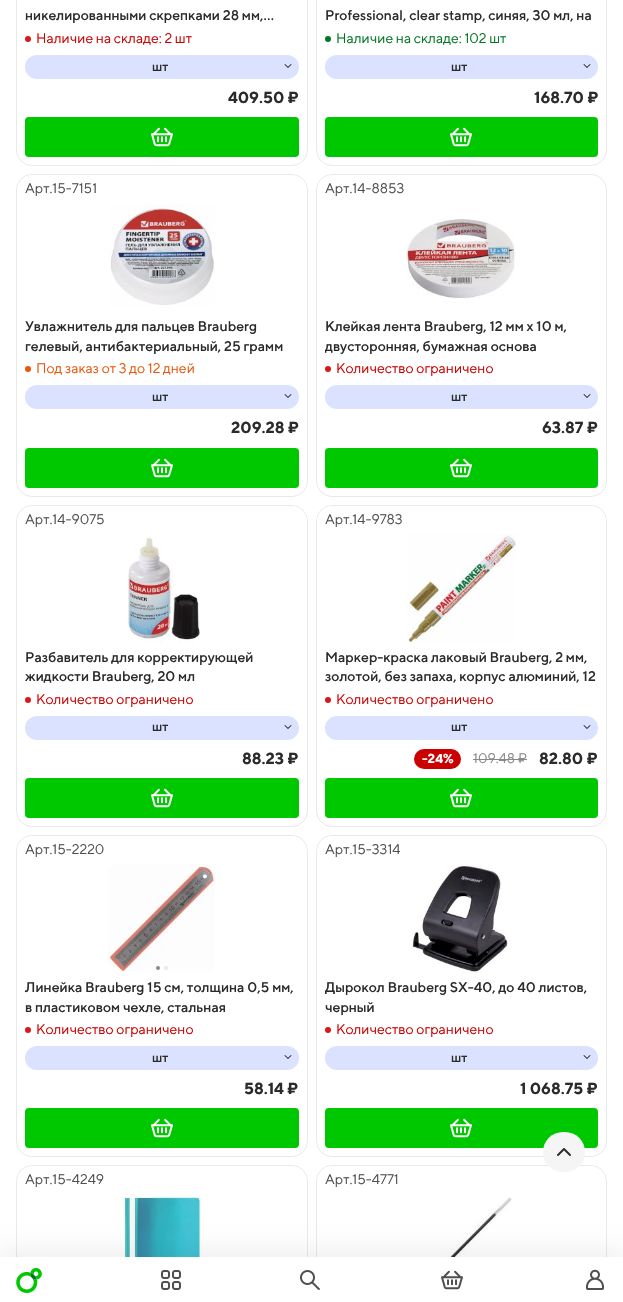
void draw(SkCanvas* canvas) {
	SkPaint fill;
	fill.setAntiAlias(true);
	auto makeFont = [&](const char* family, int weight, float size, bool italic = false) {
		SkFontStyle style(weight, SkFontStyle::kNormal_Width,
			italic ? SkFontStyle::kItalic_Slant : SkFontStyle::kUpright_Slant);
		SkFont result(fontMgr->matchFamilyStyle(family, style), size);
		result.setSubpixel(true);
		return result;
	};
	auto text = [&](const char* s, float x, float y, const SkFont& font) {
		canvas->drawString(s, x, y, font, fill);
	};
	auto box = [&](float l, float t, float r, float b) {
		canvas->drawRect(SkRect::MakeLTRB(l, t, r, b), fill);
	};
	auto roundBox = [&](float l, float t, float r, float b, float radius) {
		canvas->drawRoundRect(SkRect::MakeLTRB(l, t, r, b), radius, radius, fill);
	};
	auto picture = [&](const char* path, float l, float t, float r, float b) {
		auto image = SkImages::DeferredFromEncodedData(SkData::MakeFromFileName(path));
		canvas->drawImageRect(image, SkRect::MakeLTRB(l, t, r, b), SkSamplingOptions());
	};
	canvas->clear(0xFFFFFFFF);
	fill.setStyle(SkPaint::kStroke_Style);
	fill.setStrokeWidth(1);
	fill.setColor(0xFFE9E9E9);
	canvas->drawRoundRect(SkRect::MakeLTRB(16.5f, -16.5f, 307.5f, 165.5f), 15.5f, 15.5f, fill);
	fill.setStyle(SkPaint::kFill_Style);
	fill.setColor(0xFFD91818);
	canvas->drawCircle(28, 39, 3, fill);
	fill.setColor(0xFFDAE2FF);
	roundBox(25, 55, 299, 79, 12);
	picture("image0.png", 284, 64, 292, 68);
	fill.setColor(0xFF00C800);
	roundBox(25, 117, 299, 157, 4);
	picture("image1.png", 151, 127, 173, 147);
	fill.setStyle(SkPaint::kStroke_Style);
	fill.setColor(0xFFE9E9E9);
	canvas->drawRoundRect(SkRect::MakeLTRB(316.5f, -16.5f, 606.5f, 165.5f), 15.5f, 15.5f, fill);
	fill.setStyle(SkPaint::kFill_Style);
	fill.setColor(0xFF007622);
	canvas->drawCircle(328, 39, 3, fill);
	fill.setColor(0xFFDAE2FF);
	roundBox(325, 55, 598, 79, 12);
	picture("image0.png", 583, 64, 591, 68);
	fill.setColor(0xFF00C800);
	roundBox(325, 117, 598, 157, 4);
	picture("image1.png", 450, 127, 472, 147);
	fill.setStyle(SkPaint::kStroke_Style);
	fill.setColor(0xFFE9E9E9);
	canvas->drawRoundRect(SkRect::MakeLTRB(16.5f, 174.5f, 307.5f, 496.5f), 15.5f, 15.5f, fill);
	fill.setStyle(SkPaint::kFill_Style);
	fill.setColor(0xFFFFFFFF);
	canvas->drawPath(SkPathBuilder().moveTo(33, 175).lineTo(291, 175).cubicTo(300, 175, 307, 182, 307, 191).lineTo(307, 313).lineTo(17, 313).lineTo(17, 191).cubicTo(17, 182, 24, 175, 33, 175).close().detach(), fill);
	picture("image2.png", 109, 204, 215, 306);
	fill.setColor(0xFFE85607);
	canvas->drawCircle(28, 369, 3, fill);
	fill.setColor(0xFFDAE2FF);
	roundBox(25, 385, 299, 409, 12);
	picture("image0.png", 284, 394, 292, 398);
	fill.setColor(0xFF00C800);
	roundBox(25, 448, 299, 488, 4);
	picture("image1.png", 151, 458, 173, 478);
	fill.setStyle(SkPaint::kStroke_Style);
	fill.setColor(0xFFE9E9E9);
	canvas->drawRoundRect(SkRect::MakeLTRB(316.5f, 174.5f, 606.5f, 496.5f), 15.5f, 15.5f, fill);
	fill.setStyle(SkPaint::kFill_Style);
	fill.setColor(0xFFFFFFFF);
	canvas->drawPath(SkPathBuilder().moveTo(333, 175).lineTo(590, 175).cubicTo(599, 175, 606, 182, 606, 191).lineTo(606, 313).lineTo(317, 313).lineTo(317, 191).cubicTo(317, 182, 324, 175, 333, 175).close().detach(), fill);
	picture("image3.png", 406, 218, 516, 299);
	fill.setColor(0xFFD91818);
	canvas->drawCircle(328, 369, 3, fill);
	fill.setColor(0xFFDAE2FF);
	roundBox(325, 385, 598, 409, 12);
	picture("image0.png", 583, 394, 591, 398);
	fill.setColor(0xFF00C800);
	roundBox(325, 448, 598, 488, 4);
	picture("image1.png", 450, 458, 472, 478);
	fill.setStyle(SkPaint::kStroke_Style);
	fill.setColor(0xFFE9E9E9);
	canvas->drawRoundRect(SkRect::MakeLTRB(16.5f, 505.5f, 307.5f, 826.5f), 15.5f, 15.5f, fill);
	fill.setStyle(SkPaint::kFill_Style);
	fill.setColor(0xFFFFFFFF);
	canvas->drawPath(SkPathBuilder().moveTo(33, 506).lineTo(291, 506).cubicTo(300, 506, 307, 513, 307, 522).lineTo(307, 644).lineTo(17, 644).lineTo(17, 522).cubicTo(17, 513, 24, 506, 33, 506).close().detach(), fill);
	picture("image4.png", 128, 536, 200, 644);
	fill.setColor(0xFFD91818);
	canvas->drawCircle(28, 700, 3, fill);
	fill.setColor(0xFFDAE2FF);
	roundBox(25, 716, 299, 740, 12);
	picture("image0.png", 284, 725, 292, 729);
	fill.setColor(0xFF00C800);
	roundBox(25, 778, 299, 818, 4);
	picture("image1.png", 151, 788, 173, 808);
	fill.setStyle(SkPaint::kStroke_Style);
	fill.setColor(0xFFE9E9E9);
	canvas->drawRoundRect(SkRect::MakeLTRB(316.5f, 505.5f, 606.5f, 826.5f), 15.5f, 15.5f, fill);
	fill.setStyle(SkPaint::kFill_Style);
	fill.setColor(0xFFFFFFFF);
	canvas->drawPath(SkPathBuilder().moveTo(333, 506).lineTo(590, 506).cubicTo(599, 506, 606, 513, 606, 522).lineTo(606, 644).lineTo(317, 644).lineTo(317, 522).cubicTo(317, 513, 324, 506, 333, 506).close().detach(), fill);
	picture("image5.png", 407, 534, 516, 643);
	fill.setColor(0xFFD91818);
	canvas->drawCircle(328, 700, 3, fill);
	fill.setColor(0xFFDAE2FF);
	roundBox(325, 716, 598, 740, 12);
	picture("image0.png", 583, 725, 591, 729);
	fill.setColor(0xFFCC0000);
	roundBox(414, 749, 461, 769, 10);
	fill.setColor(0xFF888888);
	box(473, 759, 527, 760);
	fill.setColor(0xFF00C800);
	roundBox(325, 778, 598, 818, 4);
	picture("image1.png", 450, 788, 472, 808);
	fill.setStyle(SkPaint::kStroke_Style);
	fill.setColor(0xFFE9E9E9);
	canvas->drawRoundRect(SkRect::MakeLTRB(16.5f, 835.5f, 307.5f, 1156.5f), 15.5f, 15.5f, fill);
	fill.setStyle(SkPaint::kFill_Style);
	fill.setColor(0xFFFFFFFF);
	canvas->drawPath(SkPathBuilder().moveTo(33, 836).lineTo(291, 836).cubicTo(300, 836, 307, 843, 307, 852).lineTo(307, 974).lineTo(17, 974).lineTo(17, 852).cubicTo(17, 843, 24, 836, 33, 836).close().detach(), fill);
	picture("image6.png", 108, 864, 215, 972);
	fill.setColor(0xFF888888);
	canvas->drawCircle(158, 968, 2, fill);
	fill.setColor(0xFFE9E9E9);
	canvas->drawCircle(166, 968, 2, fill);
	fill.setColor(0xFFD91818);
	canvas->drawCircle(28, 1030, 3, fill);
	fill.setColor(0xFFDAE2FF);
	roundBox(25, 1046, 299, 1070, 12);
	picture("image0.png", 284, 1055, 292, 1059);
	fill.setColor(0xFF00C800);
	roundBox(25, 1108, 299, 1148, 4);
	picture("image1.png", 151, 1118, 173, 1138);
	fill.setStyle(SkPaint::kStroke_Style);
	fill.setColor(0xFFE9E9E9);
	canvas->drawRoundRect(SkRect::MakeLTRB(316.5f, 835.5f, 606.5f, 1156.5f), 15.5f, 15.5f, fill);
	fill.setStyle(SkPaint::kFill_Style);
	fill.setColor(0xFFFFFFFF);
	canvas->drawPath(SkPathBuilder().moveTo(333, 836).lineTo(590, 836).cubicTo(599, 836, 606, 843, 606, 852).lineTo(606, 974).lineTo(317, 974).lineTo(317, 852).cubicTo(317, 843, 324, 836, 333, 836).close().detach(), fill);
	picture("image7.png", 411, 864, 510, 974);
	fill.setColor(0xFFD91818);
	canvas->drawCircle(328, 1030, 3, fill);
	fill.setColor(0xFFDAE2FF);
	roundBox(325, 1046, 598, 1070, 12);
	picture("image0.png", 583, 1055, 591, 1059);
	fill.setColor(0xFF00C800);
	roundBox(325, 1108, 598, 1148, 4);
	picture("image1.png", 450, 1118, 472, 1138);
	fill.setStyle(SkPaint::kStroke_Style);
	fill.setColor(0xFFE9E9E9);
	canvas->drawRoundRect(SkRect::MakeLTRB(16.5f, 1165.5f, 307.5f, 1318.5f), 15.5f, 15.5f, fill);
	fill.setStyle(SkPaint::kFill_Style);
	fill.setColor(0xFFFFFFFF);
	canvas->drawPath(SkPathBuilder().moveTo(33, 1166).lineTo(291, 1166).cubicTo(300, 1166, 307, 1173, 307, 1182).lineTo(307, 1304).lineTo(17, 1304).lineTo(17, 1182).cubicTo(17, 1173, 24, 1166, 33, 1166).close().detach(), fill);
	picture("image8.png", 120, 1194, 204, 1257);
	fill.setStyle(SkPaint::kStroke_Style);
	fill.setColor(0xFFE9E9E9);
	canvas->drawRoundRect(SkRect::MakeLTRB(316.5f, 1165.5f, 606.5f, 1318.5f), 15.5f, 15.5f, fill);
	fill.setStyle(SkPaint::kFill_Style);
	fill.setColor(0xFFFFFFFF);
	canvas->drawPath(SkPathBuilder().moveTo(333, 1166).lineTo(590, 1166).cubicTo(599, 1166, 606, 1173, 606, 1182).lineTo(606, 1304).lineTo(317, 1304).lineTo(317, 1182).cubicTo(317, 1173, 324, 1166, 333, 1166).close().detach(), fill);
	picture("image9.png", 407, 1197, 512, 1257);
	fill.setColor(0x0D000000);
	fill.setMaskFilter(SkMaskFilter::MakeBlur(kNormal_SkBlurStyle, 10));
	canvas->drawRect(SkRect::MakeLTRB(0, 1247, 623, 1292), fill);
	fill.setMaskFilter(nullptr);
	fill.setColor(0xFFFFFFFF);
	box(0, 1257, 623, 1302);
	picture("image10.png", 16, 1268, 42, 1293);
	picture("image11.png", 161, 1270, 181, 1290);
	picture("image12.png", 300, 1270, 320, 1290);
	picture("image13.png", 441, 1270, 463, 1290);
	picture("image14.png", 586, 1269, 604, 1290);
	fill.setColor(0xFFF5F5F5);
	roundBox(543, 1132, 585, 1172, 20);
	picture("image15.png", 557, 1148, 571, 1156);
	auto font1 = makeFont("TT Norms", 500, 14);
	fill.setColor(0xFF2B2B2B);
	text("никелированными скрепками 28 мм,…", 25, 20, font1);
	auto font2 = makeFont("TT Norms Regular", 400, 14);
	fill.setColor(0xFFCC0000);
	text("Наличие на складе: 2 шт", 36, 43, font2);
	auto font3 = makeFont("TT Norms", 500, 13);
	fill.setColor(0xFF2B2B2B);
	text("шт", 152, 71, font3);
	auto font4 = makeFont("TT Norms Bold", 700, 16);
	text("409.50 ₽", 228, 103, font4);
	text("Professional, clear stamp, синяя, 30 мл, на", 325, 20, font1);
	fill.setColor(0xFF007622);
	text("Наличие на складе: 102 шт", 336, 43, font2);
	fill.setColor(0xFF2B2B2B);
	text("шт", 451, 71, font3);
	text("168.70 ₽", 534, 103, font4);
	fill.setColor(0xFF4F4F4F);
	text("Арт.15-7151", 25, 193, font2);
	fill.setColor(0xFF2B2B2B);
	text("Увлажнитель для пальцев Brauberg", 25, 331, font1);
	text("гелевый, антибактериальный, 25 грамм", 25, 351, font1);
	fill.setColor(0xFFE85607);
	text("Под заказ от 3 до 12 дней", 36, 373, font2);
	fill.setColor(0xFF2B2B2B);
	text("шт", 152, 401, font3);
	text("209.28 ₽", 231, 433, font4);
	fill.setColor(0xFF4F4F4F);
	text("Арт.14-8853", 325, 193, font2);
	fill.setColor(0xFF2B2B2B);
	text("Клейкая лента Brauberg, 12 мм х 10 м,", 325, 331, font1);
	canvas->save();
	canvas->clipRect(SkRect::MakeLTRB(325, 317, 598, 356));
	text("двусторонняя, бумажная основа", 325, 351, font1);
	canvas->restore();
	fill.setColor(0xFFCC0000);
	text("Количество ограничено", 336, 373, font2);
	fill.setColor(0xFF2B2B2B);
	text("шт", 451, 401, font3);
	text("63.87 ₽", 542, 433, font4);
	fill.setColor(0xFF4F4F4F);
	text("Арт.14-9075", 25, 524, font2);
	fill.setColor(0xFF2B2B2B);
	text("Разбавитель для корректирующей", 25, 662, font1);
	text("жидкости Brauberg, 20 мл", 25, 681, font1);
	fill.setColor(0xFFCC0000);
	text("Количество ограничено", 36, 704, font2);
	fill.setColor(0xFF2B2B2B);
	text("шт", 152, 731, font3);
	text("88.23 ₽", 242, 764, font4);
	fill.setColor(0xFF4F4F4F);
	text("Арт.14-9783", 325, 524, font2);
	fill.setColor(0xFF2B2B2B);
	text("Маркер-краска лаковый Brauberg, 2 мм,", 325, 662, font1);
	text("золотой, без запаха, корпус алюминий, 12", 325, 681, font1);
	fill.setColor(0xFFCC0000);
	text("Количество ограничено", 336, 704, font2);
	fill.setColor(0xFF2B2B2B);
	text("шт", 451, 731, font3);
	auto font5 = makeFont("TT Norms Bold", 700, 13);
	fill.setColor(0xFFFFFFFF);
	text("-24%", 422, 763, font5);
	fill.setColor(0xFF888888);
	text("109.48 ₽", 473, 763, font2);
	fill.setColor(0xFF2B2B2B);
	text("82.80 ₽", 539, 764, font4);
	fill.setColor(0xFF4F4F4F);
	text("Арт.15-2220", 25, 854, font2);
	fill.setColor(0xFF2B2B2B);
	text("Линейка Brauberg 15 см, толщина 0,5 мм,", 25, 992, font1);
	text("в пластиковом чехле, стальная", 25, 1012, font1);
	fill.setColor(0xFFCC0000);
	text("Количество ограничено", 36, 1034, font2);
	fill.setColor(0xFF2B2B2B);
	text("шт", 152, 1062, font3);
	text("58.14 ₽", 244, 1094, font4);
	fill.setColor(0xFF4F4F4F);
	text("Арт.15-3314", 325, 854, font2);
	canvas->save();
	canvas->clipRect(SkRect::MakeLTRB(325, 978, 598, 1017));
	fill.setColor(0xFF2B2B2B);
	text("Дырокол Brauberg SX-40, до 40 листов,", 325, 992, font1);
	canvas->restore();
	text("черный", 325, 1012, font1);
	fill.setColor(0xFFCC0000);
	text("Количество ограничено", 336, 1034, font2);
	fill.setColor(0xFF2B2B2B);
	text("шт", 451, 1062, font3);
	text("1 068.75 ₽", 520, 1094, font4);
	fill.setColor(0xFF4F4F4F);
	text("Арт.15-4249", 25, 1184, font2);
	text("Арт.15-4771", 325, 1184, font2);
}
